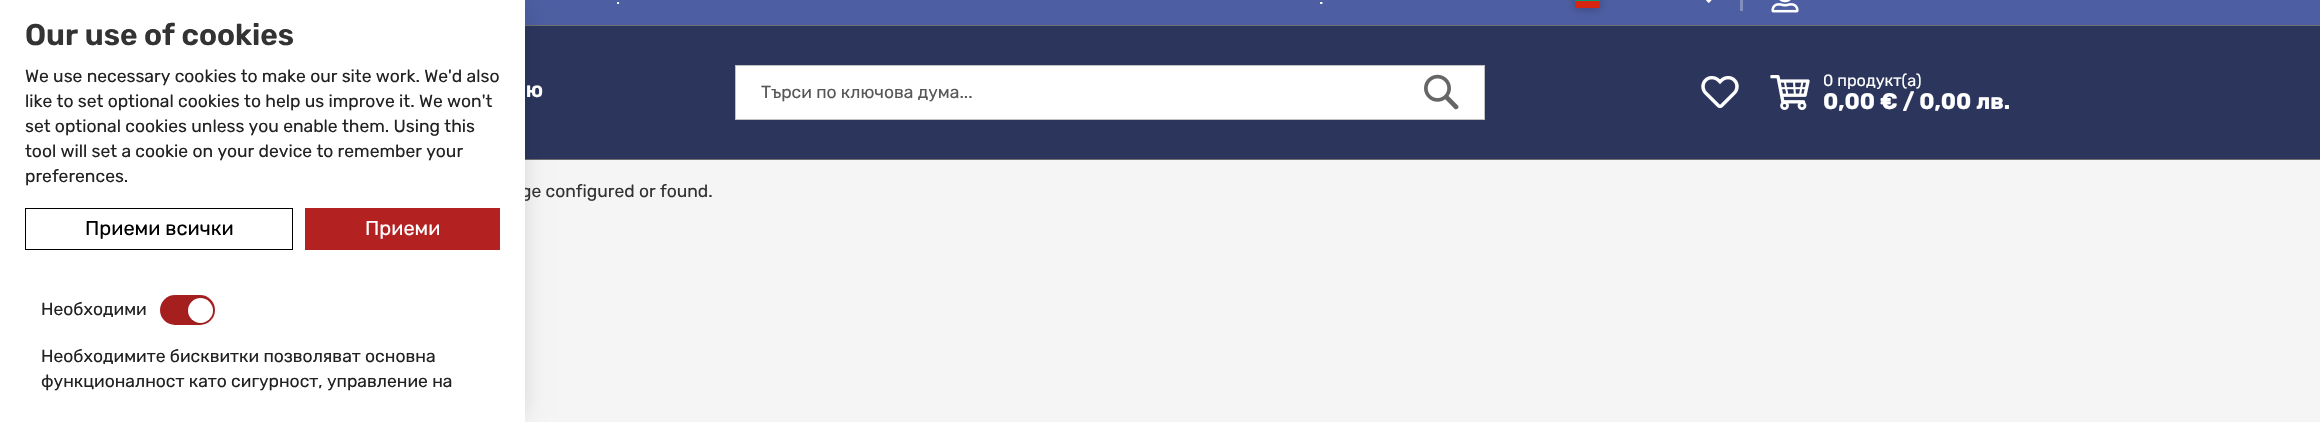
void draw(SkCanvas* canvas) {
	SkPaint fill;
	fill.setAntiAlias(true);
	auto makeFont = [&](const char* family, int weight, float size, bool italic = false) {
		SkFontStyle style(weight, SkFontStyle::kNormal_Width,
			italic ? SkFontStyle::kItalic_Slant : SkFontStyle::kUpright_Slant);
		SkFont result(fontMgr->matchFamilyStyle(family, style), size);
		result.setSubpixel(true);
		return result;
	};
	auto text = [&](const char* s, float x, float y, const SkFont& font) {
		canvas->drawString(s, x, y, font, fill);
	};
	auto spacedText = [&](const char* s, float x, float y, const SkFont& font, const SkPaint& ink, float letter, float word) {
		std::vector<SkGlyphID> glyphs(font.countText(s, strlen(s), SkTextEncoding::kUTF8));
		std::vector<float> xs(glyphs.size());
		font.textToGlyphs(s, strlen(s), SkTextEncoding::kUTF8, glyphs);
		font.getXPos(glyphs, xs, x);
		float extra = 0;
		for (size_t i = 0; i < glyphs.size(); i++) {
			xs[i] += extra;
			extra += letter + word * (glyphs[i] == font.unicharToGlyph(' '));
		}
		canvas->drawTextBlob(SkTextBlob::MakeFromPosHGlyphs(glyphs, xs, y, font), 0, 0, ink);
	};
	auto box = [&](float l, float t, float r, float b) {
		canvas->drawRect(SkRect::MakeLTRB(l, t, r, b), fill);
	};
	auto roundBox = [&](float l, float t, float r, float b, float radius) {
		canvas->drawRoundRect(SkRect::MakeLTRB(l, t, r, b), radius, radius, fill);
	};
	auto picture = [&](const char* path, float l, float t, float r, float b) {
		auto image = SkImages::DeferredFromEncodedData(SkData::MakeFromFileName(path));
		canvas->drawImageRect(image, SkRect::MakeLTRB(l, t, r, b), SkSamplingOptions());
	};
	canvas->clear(0xFFF5F5F5);
	fill.setColor(0xFF2C365D);
	box(525, 26, 2320, 159);
	fill.setColor(0xFF707070);
	box(525, 159, 2320, 160);
	fill.setColor(0xFF4D5EA2);
	box(525, 0, 2320, 25);
	fill.setColor(0xFF707070);
	box(525, 25, 2320, 26);
	fill.setColor(0x33000000);
	fill.setMaskFilter(SkMaskFilter::MakeBlur(kNormal_SkBlurStyle, 12.5f));
	canvas->drawRect(SkRect::MakeLTRB(6, 6, 519, 416), fill);
	fill.setMaskFilter(nullptr);
	fill.setColor(0xFF828EBE);
	box(1740, 0, 1743, 11);
	fill.setColor(0x33000000);
	fill.setMaskFilter(SkMaskFilter::MakeBlur(kNormal_SkBlurStyle, 4.5f));
	canvas->drawRect(SkRect::MakeLTRB(1575, -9, 1600, 10), fill);
	fill.setMaskFilter(nullptr);
	fill.setColor(0xFFD62612);
	box(1575, 1, 1600, 8);
	fill.setColor(0xFF00966E);
	box(1575, 0, 1600, 1);
	picture("image0.png", 1706, 0, 1712, 3);
	picture("image1.png", 1771, 0, 1799, 13);
	fill.setColor(0xFFFFFFFF);
	canvas->drawRect(SkRect::MakeLTRB(735.5f, 65.5f, 1484.5f, 119.5f), fill);
	fill.setStyle(SkPaint::kStroke_Style);
	fill.setStrokeWidth(1);
	fill.setColor(0xFFC2C2C2);
	canvas->drawRect(SkRect::MakeLTRB(735.5f, 65.5f, 1484.5f, 119.5f), fill);
	picture("image2.png", 1424, 74, 1459, 110);
	picture("image3.png", 1701, 76, 1739, 109);
	picture("image4.png", 1770, 75, 1810, 110);
	auto font1 = makeFont("Rubik", 400, 16.25f);
	fill.setStyle(SkPaint::kFill_Style);
	fill.setColor(0xFFFFFFFF);
	text(".", 616, 4, font1);
	auto font2 = makeFont("Rubik", 400, 17.5f);
	text(".", 1319, 4, font2);
	auto font3 = makeFont("Rubik", 700, 16.25f);
	spacedText("Ю", 526, 97, font3, fill, 2, 0);
	fill.setColor(0xFF575757);
	text("Търси по ключова дума...", 761, 98, font2);
	fill.setColor(0xFFFFFFFF);
	text("0 продукт(а)", 1823, 86, font1);
	auto font4 = makeFont("Rubik", 700, 22.5f);
	text("0,00 € / 0,00 лв.", 1823, 109, font4);
	fill.setColor(0xFF333333);
	text("ge configured or found.", 521, 197, font2);
	fill.setColor(0xFFFFFFFF);
	box(0, 0, 525, 422);
	fill.setColor(0xFFA61F1F);
	roundBox(160, 295, 215, 325, 15);
	fill.setColor(0x1A000000);
	fill.setMaskFilter(SkMaskFilter::MakeBlur(kNormal_SkBlurStyle, 2));
	canvas->drawRoundRect(SkRect::MakeLTRB(188, 299, 213, 324), 12.5f, 12.5f, fill);
	fill.setMaskFilter(nullptr);
	fill.setColor(0xFFFFFFFF);
	canvas->drawCircle(200.5f, 310.5f, 12.5f, fill);
	fill.setColor(0xFF222222);
	text("Необходими", 41, 315, font2);
	text("функционалност като сигурност, управление на", 41, 387, font2);
	text("Необходимите бисквитки позволяват основна", 41, 362, font2);
	fill.setColor(0xFFB32121);
	box(305, 208, 500, 250);
	auto font5 = makeFont("Rubik", 400, 20);
	fill.setColor(0xFFFFFFFF);
	text("Приеми", 365, 235, font5);
	fill.setStyle(SkPaint::kStroke_Style);
	fill.setColor(0xFF000000);
	canvas->drawRect(SkRect::MakeLTRB(25.5f, 208.5f, 292.5f, 249.5f), fill);
	fill.setStyle(SkPaint::kFill_Style);
	text("Приеми всички", 85, 235, font5);
	fill.setColor(0xFF222222);
	text("preferences.", 25, 182, font2);
	text("tool will set a cookie on your device to remember your", 25, 157, font2);
	text("set optional cookies unless you enable them. Using this", 25, 132, font2);
	text("like to set optional cookies to help us improve it. We won't", 25, 107, font2);
	text("We use necessary cookies to make our site work. We'd also", 25, 82, font2);
	auto font6 = makeFont("Rubik", 600, 30);
	fill.setColor(0xFF333333);
	text("Our use of cookies", 25, 45, font6);
}
